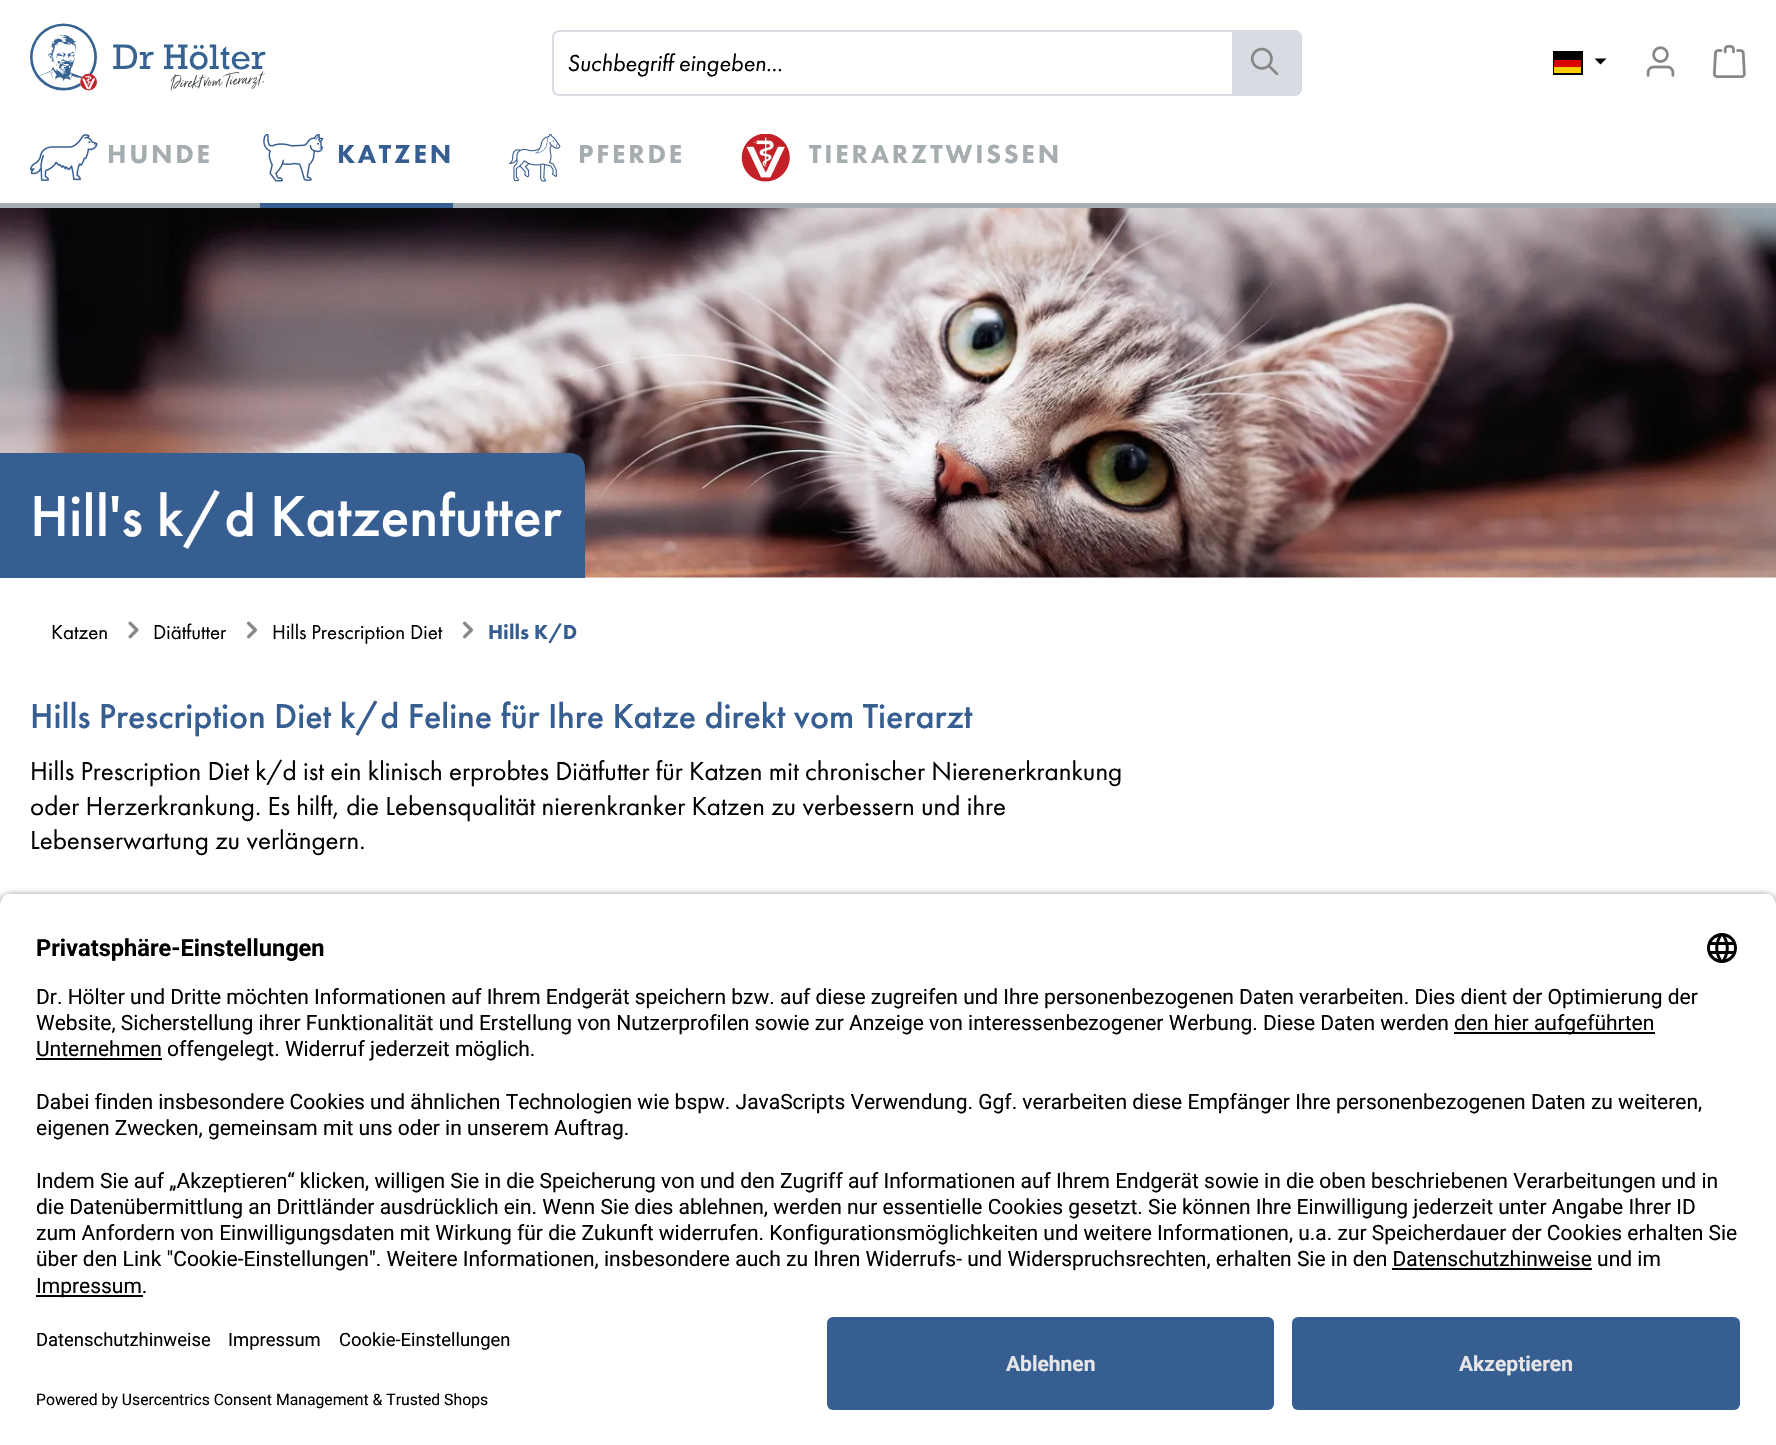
void draw(SkCanvas* canvas) {
	SkPaint fill;
	fill.setAntiAlias(true);
	auto makeFont = [&](const char* family, int weight, float size, bool italic = false) {
		SkFontStyle style(weight, SkFontStyle::kNormal_Width,
			italic ? SkFontStyle::kItalic_Slant : SkFontStyle::kUpright_Slant);
		SkFont result(fontMgr->matchFamilyStyle(family, style), size);
		result.setSubpixel(true);
		return result;
	};
	auto text = [&](const char* s, float x, float y, const SkFont& font) {
		canvas->drawString(s, x, y, font, fill);
	};
	auto spacedText = [&](const char* s, float x, float y, const SkFont& font, const SkPaint& ink, float letter, float word) {
		std::vector<SkGlyphID> glyphs(font.countText(s, strlen(s), SkTextEncoding::kUTF8));
		std::vector<float> xs(glyphs.size());
		font.textToGlyphs(s, strlen(s), SkTextEncoding::kUTF8, glyphs);
		font.getXPos(glyphs, xs, x);
		float extra = 0;
		for (size_t i = 0; i < glyphs.size(); i++) {
			xs[i] += extra;
			extra += letter + word * (glyphs[i] == font.unicharToGlyph(' '));
		}
		canvas->drawTextBlob(SkTextBlob::MakeFromPosHGlyphs(glyphs, xs, y, font), 0, 0, ink);
	};
	auto box = [&](float l, float t, float r, float b) {
		canvas->drawRect(SkRect::MakeLTRB(l, t, r, b), fill);
	};
	auto roundBox = [&](float l, float t, float r, float b, float radius) {
		canvas->drawRoundRect(SkRect::MakeLTRB(l, t, r, b), radius, radius, fill);
	};
	auto picture = [&](const char* path, float l, float t, float r, float b) {
		auto image = SkImages::DeferredFromEncodedData(SkData::MakeFromFileName(path));
		canvas->drawImageRect(image, SkRect::MakeLTRB(l, t, r, b), SkSamplingOptions());
	};
	canvas->clear(0xFFFFFFFF);
	fill.setColor(0xFFA6ADB0);
	box(0, 203, 1776, 208);
	picture("image0.png", 30, 23, 266, 91);
	fill.setColor(0xFFD8DBE2);
	canvas->drawPath(SkPathBuilder(SkPathFillType::kEvenOdd).moveTo(560, 30).lineTo(1233, 30).lineTo(1233, 96).lineTo(560, 96).cubicTo(555, 96, 552, 93, 552, 88).lineTo(552, 38).cubicTo(552, 33, 555, 30, 560, 30).close().moveTo(560, 32).lineTo(1233, 32).lineTo(1233, 94).lineTo(560, 94).cubicTo(556, 94, 554, 92, 554, 88).lineTo(554, 38).cubicTo(554, 34, 556, 32, 560, 32).close().detach(), fill);
	canvas->drawPath(SkPathBuilder().moveTo(1232, 30).lineTo(1294, 30).cubicTo(1298.5f, 30, 1302, 33.5f, 1302, 38).lineTo(1302, 88).cubicTo(1302, 92.5f, 1298.5f, 96, 1294, 96).lineTo(1232, 96).close().detach(), fill);
	canvas->drawPath(SkPathBuilder(SkPathFillType::kEvenOdd).moveTo(1232, 30).lineTo(1294, 30).cubicTo(1299, 30, 1302, 33, 1302, 38).lineTo(1302, 88).cubicTo(1302, 93, 1299, 96, 1294, 96).lineTo(1232, 96).close().moveTo(1232, 32).lineTo(1294, 32).cubicTo(1298, 32, 1300, 34, 1300, 38).lineTo(1300, 88).cubicTo(1300, 92, 1298, 94, 1294, 94).lineTo(1232, 94).close().detach(), fill);
	picture("image1.png", 1250, 47, 1279, 76);
	fill.setStyle(SkPaint::kStroke_Style);
	fill.setStrokeWidth(2);
	fill.setColor(0xFF000000);
	canvas->drawRect(SkRect::MakeLTRB(1554, 52, 1582, 74), fill);
	fill.setStyle(SkPaint::kFill_Style);
	box(1554, 53, 1581, 60);
	fill.setColor(0xFFDD0000);
	box(1554, 60, 1581, 67);
	fill.setColor(0xFF000000);
	canvas->drawPath(SkPathBuilder().moveTo(1594.5f, 58.5f).lineTo(1606.5f, 58.5f).lineTo(1600.5f, 64.5f).close().detach(), fill);
	fill.setColor(0xFFFFCE00);
	box(1554, 67, 1581, 73);
	picture("image2.png", 1646, 46, 1675, 77);
	picture("image3.png", 1713, 45, 1746, 78);
	picture("image4.png", 30, 134, 98, 181);
	fill.setColor(0xFF375E91);
	box(260, 203, 453, 208);
	picture("image5.png", 263, 134, 324, 182);
	picture("image6.png", 509, 134, 561, 182);
	picture("image7.png", 741, 134, 790, 182);
	picture("image8.png", 0, 208, 1776, 578);
	box(0, 453, 30, 578);
	canvas->drawPath(SkPathBuilder().moveTo(30, 453).lineTo(570, 453).cubicTo(578.5f, 453, 585, 459.5f, 585, 468).lineTo(585, 578).lineTo(30, 578).close().detach(), fill);
	picture("image9.png", 128, 621, 139, 639);
	picture("image10.png", 247, 621, 257, 639);
	picture("image10.png", 463, 621, 473, 639);
	fill.setColor(0xCC000000);
	fill.setMaskFilter(SkMaskFilter::MakeBlur(kNormal_SkBlurStyle, 5));
	canvas->drawRoundRect(SkRect::MakeLTRB(0, 897, 1776, 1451), 12, 12, fill);
	fill.setMaskFilter(nullptr);
	canvas->save();
	canvas->clipPath(SkPathBuilder().moveTo(12, 893).lineTo(1764, 893).cubicTo(1770.5f, 893, 1776, 898.5f, 1776, 905).lineTo(1776, 1305).lineTo(0, 1305).lineTo(0, 905).cubicTo(0, 898.5f, 5.5f, 893, 12, 893).close().detach(), true);
	fill.setColor(0xFFFFFFFF);
	box(0, 894, 1776, 1305);
	canvas->restore();
	picture("image11.png", 1707, 933, 1737, 963);
	fill.setColor(0xFF000000);
	box(1454, 1032, 1655, 1034);
	box(36, 1058, 162, 1060);
	box(1392, 1268, 1592, 1270);
	box(36, 1295, 143, 1297);
	fill.setColor(0xFFFFFFFF);
	box(0, 1305, 1776, 1445);
	fill.setColor(0xFF375E91);
	roundBox(827, 1317, 1274, 1410, 6);
	roundBox(1292, 1317, 1740, 1410, 6);
	auto font1 = makeFont("Futura PT", 400, 24, true);
	fill.setColor(0xFF000000);
	text("Suchbegriff eingeben...", 567, 71, font1);
	auto font2 = makeFont("Futura PT", 900, 27);
	fill.setColor(0xFFA6ADB0);
	spacedText("HUNDE", 107, 163, font2, fill, 2.75f, 0);
	fill.setColor(0xFF375E91);
	spacedText("KATZEN", 337, 163, font2, fill, 2.75f, 0);
	fill.setColor(0xFFA6ADB0);
	spacedText("PFERDE", 578, 163, font2, fill, 2.75f, 0);
	spacedText("TIERARZTWISSEN", 809, 163, font2, fill, 2.75f, 0);
	auto font3 = makeFont("Futura PT", 500, 60);
	fill.setColor(0xFFFFFFFF);
	text("Hill's k/d Katzenfutter", 30, 536, font3);
	auto font4 = makeFont("Futura PT", 400, 21);
	fill.setColor(0xFF000000);
	text("Katzen", 51, 639, font4);
	text("Diätfutter", 153, 639, font4);
	text("Hills Prescription Diet", 272, 639, font4);
	auto font5 = makeFont("Futura PT", 900, 21);
	fill.setColor(0xFF375E91);
	text("Hills K/D", 488, 639, font5);
	auto font6 = makeFont("Futura PT", 500, 36);
	text("Hills Prescription Diet k/d Feline für Ihre Katze direkt vom Tierarzt", 30, 728, font6);
	auto font7 = makeFont("Futura PT", 400, 27);
	fill.setColor(0xFF000000);
	text("Hills Prescription Diet k/d ist ein klinisch erprobtes Diätfutter für Katzen mit chronischer Nierenerkrankung", 30, 780, font7);
	text("oder Herzerkrankung. Es hilft, die Lebensqualität nierenkranker Katzen zu verbessern und ihre", 30, 815, font7);
	text("Lebenserwartung zu verlängern.", 30, 849, font7);
	auto font8 = makeFont("Roboto", 700, 23.6f);
	text("Privatsphäre-Einstellungen", 36, 956, font8);
	auto font9 = makeFont("Roboto", 400, 21);
	text("Dr. Hölter und Dritte möchten Informationen auf Ihrem Endgerät speichern bzw. auf diese zugreifen und Ihre personenbezogenen Daten verarbeiten. Dies dient der Optimierung der", 36, 1004, font9);
	text("Website, Sicherstellung ihrer Funktionalität und Erstellung von Nutzerprofilen sowie zur Anzeige von interessenbezogener Werbung. Diese Daten werden", 36, 1030, font9);
	text("den hier aufgeführten", 1454, 1030, font9);
	text("Unternehmen offengelegt. Widerruf jederzeit möglich.", 36, 1056, font9);
	text("Dabei finden insbesondere Cookies und ähnlichen Technologien wie bspw. JavaScripts Verwendung. Ggf. verarbeiten diese Empfänger Ihre personenbezogenen Daten zu weiteren,", 36, 1109, font9);
	text("eigenen Zwecken, gemeinsam mit uns oder in unserem Auftrag.", 36, 1135, font9);
	text("Indem Sie auf „Akzeptieren“ klicken, willigen Sie in die Speicherung von und den Zugriff auf Informationen auf Ihrem Endgerät sowie in die oben beschriebenen Verarbeitungen und in", 36, 1188, font9);
	text("die Datenübermittlung an Drittländer ausdrücklich ein. Wenn Sie dies ablehnen, werden nur essentielle Cookies gesetzt. Sie können Ihre Einwilligung jederzeit unter Angabe Ihrer ID", 36, 1214, font9);
	text("zum Anfordern von Einwilligungsdaten mit Wirkung für die Zukunft widerrufen. Konfigurationsmöglichkeiten und weitere Informationen, u.a. zur Speicherdauer der Cookies erhalten Sie", 36, 1240, font9);
	text("über den Link \"Cookie-Einstellungen\". Weitere Informationen, insbesondere auch zu Ihren Widerrufs- und Widerspruchsrechten, erhalten Sie in den Datenschutzhinweise und im", 36, 1266, font9);
	text("Impressum.", 36, 1293, font9);
	auto font10 = makeFont("Roboto", 400, 18.4f);
	text("Datenschutzhinweise", 36, 1346, font10);
	text("Impressum", 228, 1346, font10);
	text("Cookie-Einstellungen", 339, 1346, font10);
	auto font11 = makeFont("Roboto", 400, 15.75f);
	text("Powered by Usercentrics Consent Management & Trusted Shops", 36, 1405, font11);
	auto font12 = makeFont("Roboto", 700, 21);
	fill.setColor(0xFFE6E6E6);
	text("Ablehnen", 1006, 1371, font12);
	text("Akzeptieren", 1459, 1371, font12);
}
